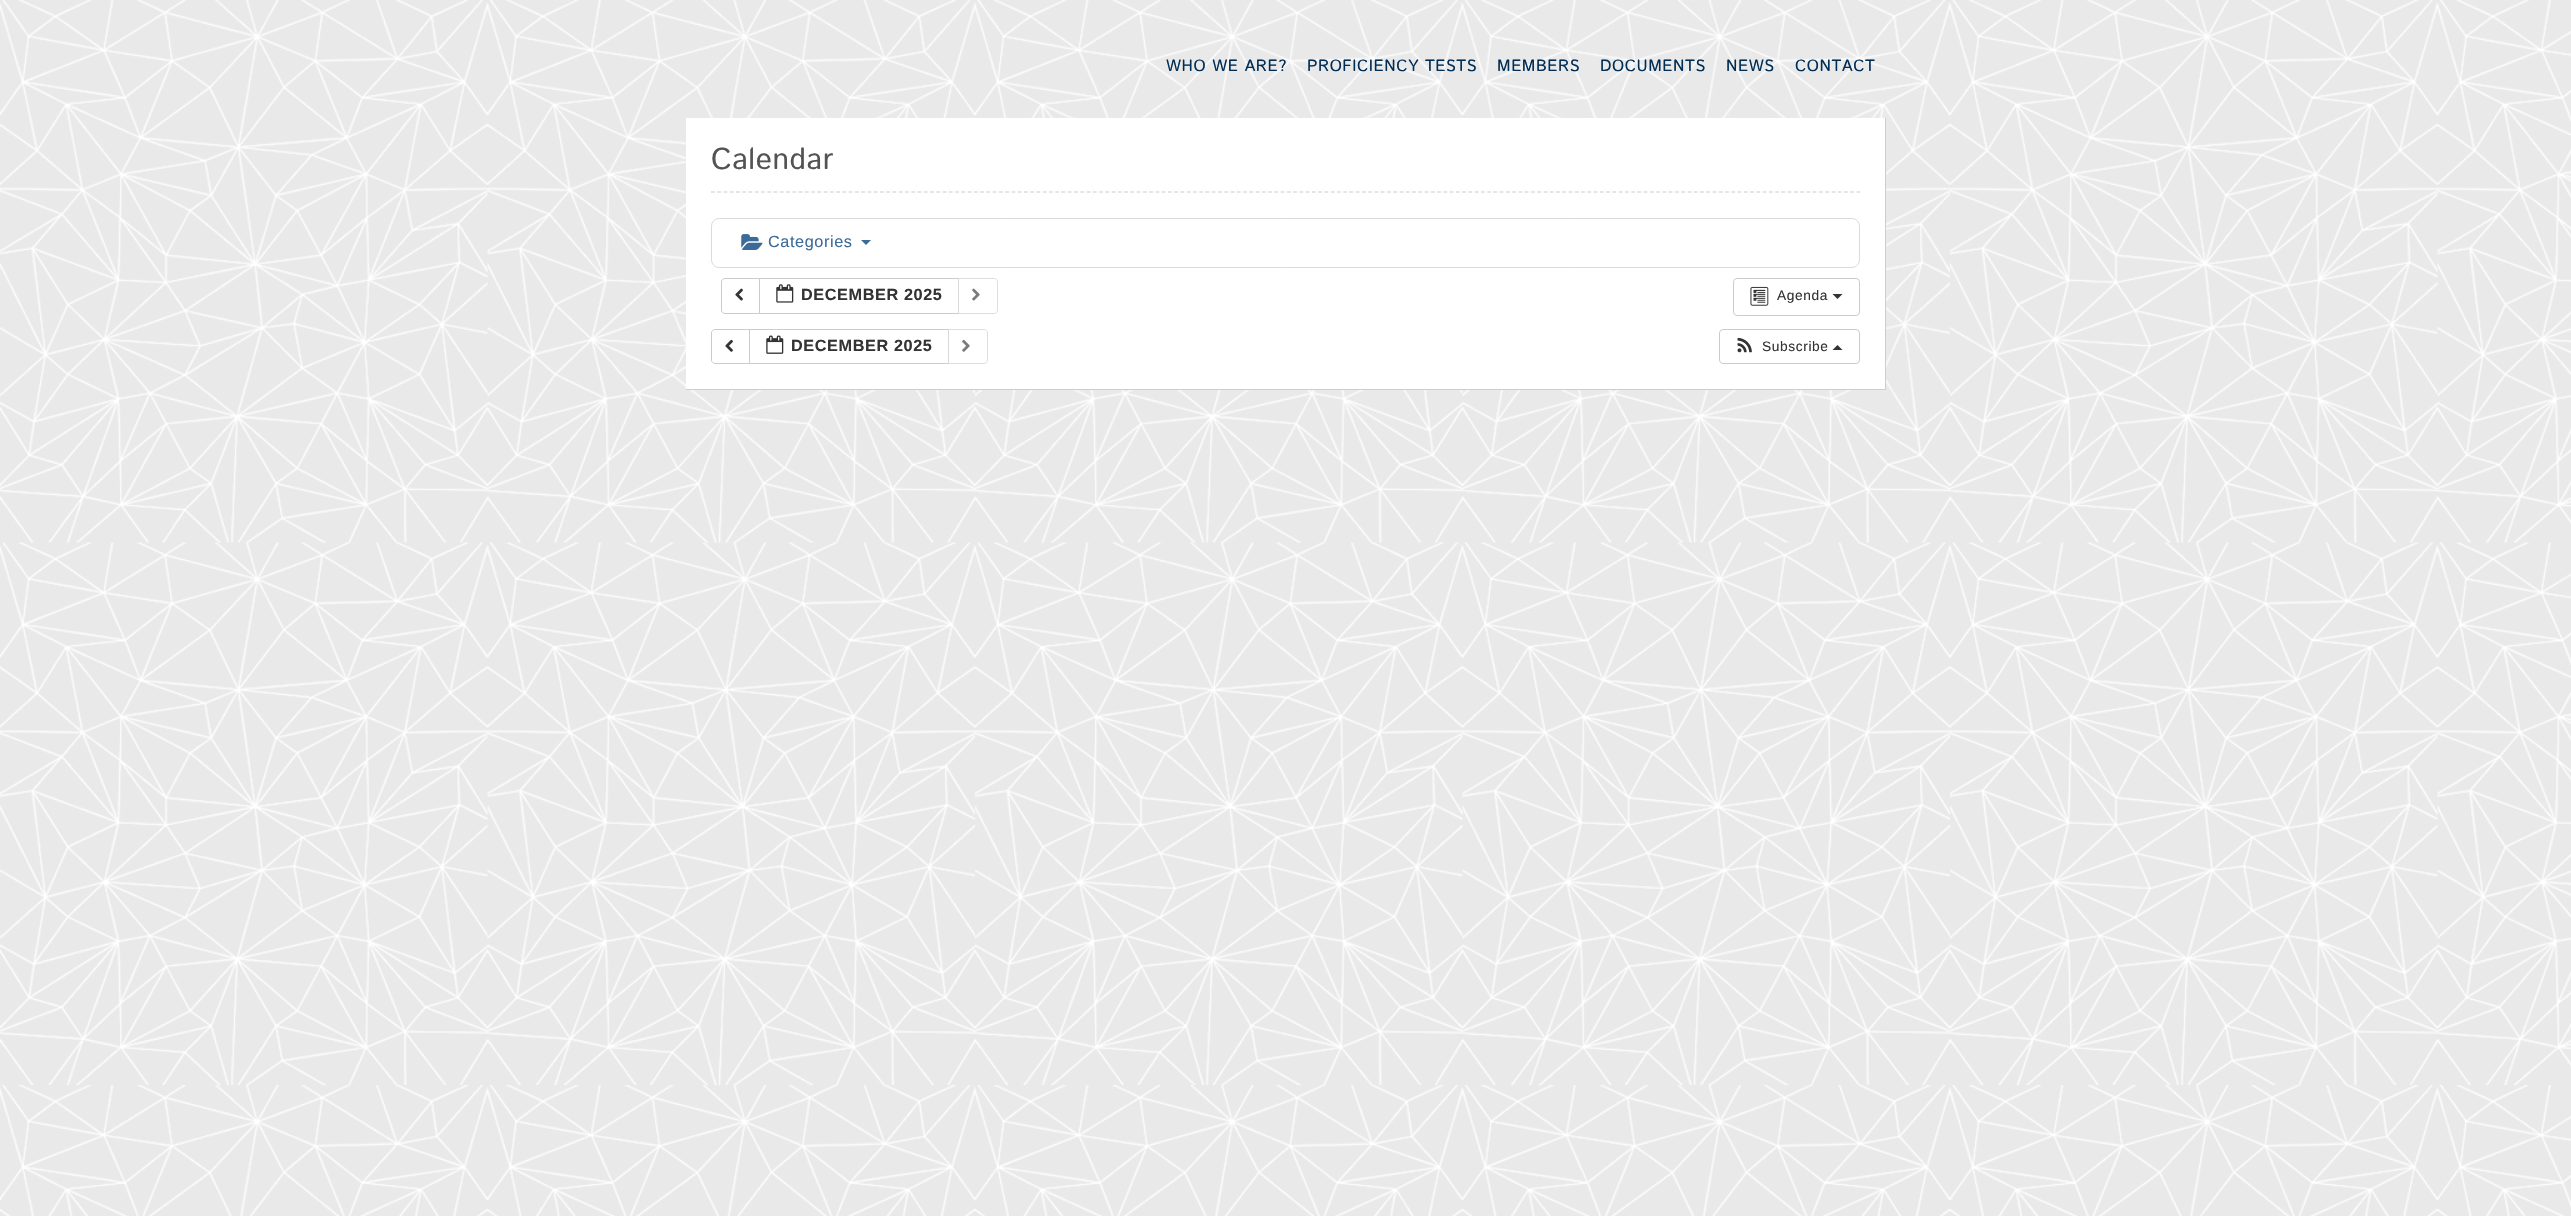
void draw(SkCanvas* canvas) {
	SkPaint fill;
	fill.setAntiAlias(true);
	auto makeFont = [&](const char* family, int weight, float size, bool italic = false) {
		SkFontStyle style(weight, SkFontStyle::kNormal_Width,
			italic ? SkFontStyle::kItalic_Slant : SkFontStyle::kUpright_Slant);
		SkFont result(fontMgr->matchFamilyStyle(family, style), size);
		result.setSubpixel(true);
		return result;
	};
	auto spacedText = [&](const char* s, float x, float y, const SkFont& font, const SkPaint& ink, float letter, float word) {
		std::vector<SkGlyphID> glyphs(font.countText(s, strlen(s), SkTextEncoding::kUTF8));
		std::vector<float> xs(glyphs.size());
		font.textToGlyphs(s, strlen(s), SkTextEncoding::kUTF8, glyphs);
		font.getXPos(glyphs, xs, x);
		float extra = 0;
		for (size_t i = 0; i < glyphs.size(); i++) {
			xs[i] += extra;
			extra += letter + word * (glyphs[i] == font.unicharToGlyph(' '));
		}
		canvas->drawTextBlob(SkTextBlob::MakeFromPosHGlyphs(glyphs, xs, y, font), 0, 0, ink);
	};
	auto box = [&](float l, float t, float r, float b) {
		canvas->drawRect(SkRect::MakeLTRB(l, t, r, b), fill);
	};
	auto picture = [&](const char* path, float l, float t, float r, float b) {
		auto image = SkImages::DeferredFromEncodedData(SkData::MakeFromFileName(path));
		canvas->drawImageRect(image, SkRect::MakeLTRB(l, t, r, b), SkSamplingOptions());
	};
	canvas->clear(0xFFE9E9E9);
	picture("image0.png", 0, 0, 2571, 1216);
	fill.setColor(0xFFFFFFFF);
	box(686, 118, 1885, 389);
	fill.setColor(0xFFCDCDCD);
	box(1885, 118, 1886, 390);
	box(686, 389, 1886, 390);
	fill.setStyle(SkPaint::kStroke_Style);
	fill.setStrokeWidth(1.2f);
	fill.setColor(0xFFCCCCCC);
	fill.setPathEffect(SkDashPathEffect::Make({{3.75f, 2.51f}}, 0));
	canvas->drawPath(SkPathBuilder().moveTo(711, 192).lineTo(1860, 192).detach(), fill);
	fill.setPathEffect(nullptr);
	fill.setStrokeWidth(1);
	fill.setColor(0xFFDBDBDB);
	canvas->drawRoundRect(SkRect::MakeLTRB(711.5f, 218.5f, 1859.5f, 267.5f), 7.5f, 7.5f, fill);
	picture("image1.png", 741, 234, 763, 250);
	fill.setStyle(SkPaint::kFill_Style);
	fill.setColor(0xFF3D6B99);
	canvas->drawPath(SkPathBuilder().moveTo(861, 240).lineTo(871, 240).lineTo(866, 245).close().detach(), fill);
	fill.setStyle(SkPaint::kStroke_Style);
	fill.setColor(0xFFCCCCCC);
	canvas->drawPath(SkPathBuilder().moveTo(725, 278.5f).lineTo(759.5f, 278.5f).lineTo(759.5f, 313.5f).lineTo(725, 313.5f).cubicTo(723, 313.5f, 721.5f, 312, 721.5f, 310).lineTo(721.5f, 282).cubicTo(721.5f, 280, 723, 278.5f, 725, 278.5f).close().detach(), fill);
	picture("image2.png", 735, 288, 743, 301);
	canvas->drawRect(SkRect::MakeLTRB(759.5f, 278.5f, 958.5f, 313.5f), fill);
	picture("image3.png", 776, 284, 794, 303);
	fill.setStyle(SkPaint::kFill_Style);
	fill.setColor(0xA6FFFFFF);
	canvas->drawPath(SkPathBuilder().moveTo(958, 278).lineTo(994, 278).cubicTo(996, 278, 998, 280, 998, 282).lineTo(998, 310).cubicTo(998, 312, 996, 314, 994, 314).lineTo(958, 314).close().detach(), fill);
	fill.setStyle(SkPaint::kStroke_Style);
	fill.setColor(0xA6CCCCCC);
	canvas->drawPath(SkPathBuilder().moveTo(958.5f, 278.5f).lineTo(994, 278.5f).cubicTo(996, 278.5f, 997.5f, 280, 997.5f, 282).lineTo(997.5f, 310).cubicTo(997.5f, 312, 996, 313.5f, 994, 313.5f).lineTo(958.5f, 313.5f).close().detach(), fill);
	picture("image4.png", 972, 288, 980, 301);
	fill.setColor(0xFFCCCCCC);
	canvas->drawRoundRect(SkRect::MakeLTRB(1733.5f, 278.5f, 1859.5f, 315.5f), 3.5f, 3.5f, fill);
	picture("image5.png", 1750, 286, 1769, 306);
	fill.setStyle(SkPaint::kFill_Style);
	fill.setColor(0xFF333333);
	canvas->drawPath(SkPathBuilder().moveTo(1832.5f, 294).lineTo(1842.5f, 294).lineTo(1837.5f, 299).close().detach(), fill);
	fill.setStyle(SkPaint::kStroke_Style);
	fill.setColor(0xFFCCCCCC);
	canvas->drawPath(SkPathBuilder().moveTo(715, 329.5f).lineTo(749.5f, 329.5f).lineTo(749.5f, 363.5f).lineTo(715, 363.5f).cubicTo(713, 363.5f, 711.5f, 362, 711.5f, 360).lineTo(711.5f, 333).cubicTo(711.5f, 331, 713, 329.5f, 715, 329.5f).close().detach(), fill);
	picture("image6.png", 725, 339, 733, 352);
	canvas->drawRect(SkRect::MakeLTRB(749.5f, 329.5f, 948.5f, 363.5f), fill);
	picture("image7.png", 766, 335, 784, 354);
	fill.setStyle(SkPaint::kFill_Style);
	fill.setColor(0xA6FFFFFF);
	canvas->drawPath(SkPathBuilder().moveTo(948, 329).lineTo(984, 329).cubicTo(986, 329, 988, 331, 988, 333).lineTo(988, 360).cubicTo(988, 362, 986, 364, 984, 364).lineTo(948, 364).close().detach(), fill);
	fill.setStyle(SkPaint::kStroke_Style);
	fill.setColor(0xA6CCCCCC);
	canvas->drawPath(SkPathBuilder().moveTo(948.5f, 329.5f).lineTo(984, 329.5f).cubicTo(986, 329.5f, 987.5f, 331, 987.5f, 333).lineTo(987.5f, 360).cubicTo(987.5f, 362, 986, 363.5f, 984, 363.5f).lineTo(948.5f, 363.5f).close().detach(), fill);
	picture("image8.png", 962, 339, 970, 352);
	fill.setColor(0xFFCCCCCC);
	canvas->drawRoundRect(SkRect::MakeLTRB(1719.5f, 329.5f, 1859.5f, 363.5f), 3.5f, 3.5f, fill);
	picture("image9.png", 1737, 337, 1752, 353);
	fill.setStyle(SkPaint::kFill_Style);
	fill.setColor(0xFF333333);
	canvas->drawPath(SkPathBuilder().moveTo(1842.5f, 350).lineTo(1832.5f, 350).lineTo(1837.5f, 345).close().detach(), fill);
	auto font1 = makeFont("Istok Web", 400, 16.25f);
	fill.setColor(0xFF002D55);
	spacedText("WHO WE ARE?", 1166, 71, font1, fill, 0.6f, 0);
	spacedText("PROFICIENCY TESTS", 1307, 71, font1, fill, 0.6f, 0);
	spacedText("MEMBERS", 1497, 71, font1, fill, 0.6f, 0);
	spacedText("DOCUMENTS", 1600, 71, font1, fill, 0.6f, 0);
	spacedText("NEWS", 1726, 71, font1, fill, 0.6f, 0);
	spacedText("CONTACT", 1795, 71, font1, fill, 0.6f, 0);
	auto font2 = makeFont("Istok Web", 400, 30);
	fill.setColor(0xFF535353);
	spacedText("Calendar", 711, 169, font2, fill, 0.6f, 0);
	auto font3 = makeFont("Liberation Sans", 400, 16.25f);
	fill.setColor(0xFF3D6B99);
	spacedText("Categories", 768, 247, font3, fill, 0.6f, 0);
	auto font4 = makeFont("Liberation Sans", 700, 16.25f);
	fill.setColor(0xFF333333);
	spacedText("DECEMBER 2025", 801, 300, font4, fill, 0.6f, 0);
	auto font5 = makeFont("Liberation Sans", 400, 13.75f);
	spacedText("Agenda", 1777, 300, font5, fill, 0.6f, 0);
	spacedText("DECEMBER 2025", 791, 351, font4, fill, 0.6f, 0);
	spacedText("Subscribe", 1762, 351, font5, fill, 0.6f, 0);
}
